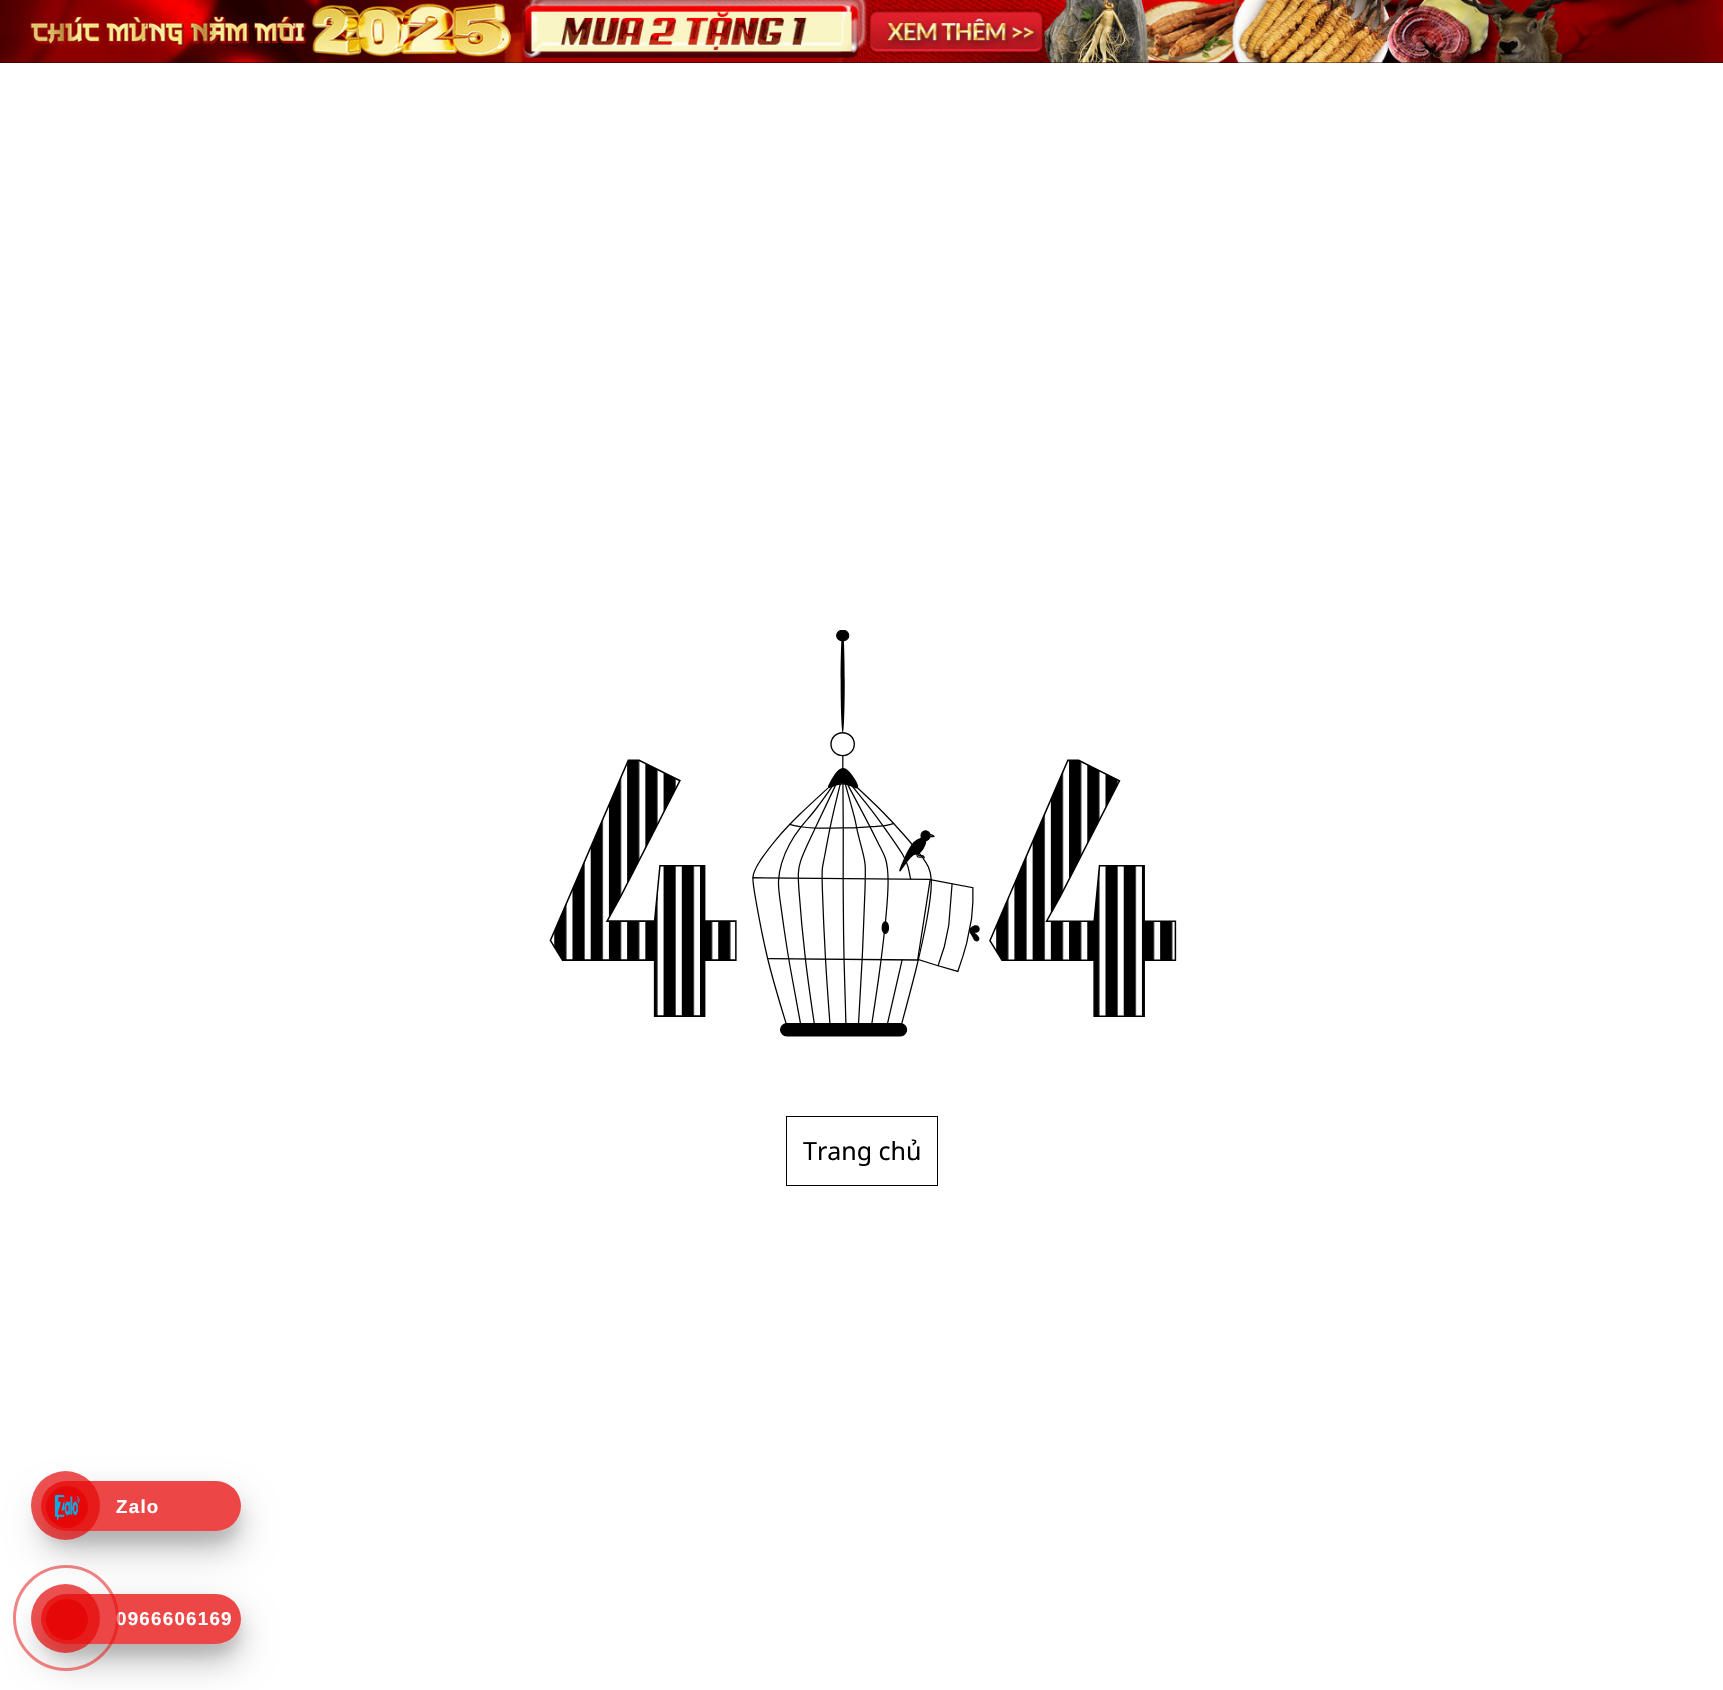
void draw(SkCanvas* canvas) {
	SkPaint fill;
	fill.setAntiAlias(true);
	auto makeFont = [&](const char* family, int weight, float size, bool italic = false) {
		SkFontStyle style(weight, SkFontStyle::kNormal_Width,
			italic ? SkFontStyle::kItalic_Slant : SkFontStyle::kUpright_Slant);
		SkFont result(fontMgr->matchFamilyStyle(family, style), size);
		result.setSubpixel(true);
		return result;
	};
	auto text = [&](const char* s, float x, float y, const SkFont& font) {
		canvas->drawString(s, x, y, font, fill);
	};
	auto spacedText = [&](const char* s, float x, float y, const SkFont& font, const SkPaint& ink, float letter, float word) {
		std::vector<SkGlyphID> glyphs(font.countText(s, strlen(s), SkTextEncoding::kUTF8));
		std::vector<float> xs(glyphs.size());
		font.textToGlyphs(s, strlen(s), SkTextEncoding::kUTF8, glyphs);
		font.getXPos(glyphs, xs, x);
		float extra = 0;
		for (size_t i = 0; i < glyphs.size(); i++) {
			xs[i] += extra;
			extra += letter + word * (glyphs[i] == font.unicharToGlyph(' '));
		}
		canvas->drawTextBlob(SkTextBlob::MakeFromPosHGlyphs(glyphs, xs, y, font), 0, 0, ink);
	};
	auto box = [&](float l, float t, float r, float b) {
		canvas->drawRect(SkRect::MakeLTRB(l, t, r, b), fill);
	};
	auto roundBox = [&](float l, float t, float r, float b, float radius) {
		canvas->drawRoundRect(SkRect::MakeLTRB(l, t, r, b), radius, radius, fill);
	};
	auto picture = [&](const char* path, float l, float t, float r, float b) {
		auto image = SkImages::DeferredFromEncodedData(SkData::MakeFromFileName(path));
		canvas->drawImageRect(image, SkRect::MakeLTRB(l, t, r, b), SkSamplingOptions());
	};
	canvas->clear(0xFF220A00);
	picture("image0.png", 0, 0, 1723, 63);
	fill.setColor(0xFFFFFFFF);
	box(0, 63, 1723, 1690);
	picture("image1.png", 549, 630, 1177, 1037);
	fill.setStyle(SkPaint::kStroke_Style);
	fill.setStrokeWidth(1);
	fill.setColor(0xFF000000);
	canvas->drawRect(SkRect::MakeLTRB(786.5f, 1116.5f, 937.5f, 1185.5f), fill);
	canvas->save();
	canvas->clipPath(SkPathBuilder(SkPathFillType::kEvenOdd).moveTo(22, 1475).lineTo(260, 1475).lineTo(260, 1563).lineTo(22, 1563).close().moveTo(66, 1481).lineTo(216, 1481).cubicTo(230, 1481, 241, 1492, 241, 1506).cubicTo(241, 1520, 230, 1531, 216, 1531).lineTo(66, 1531).cubicTo(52, 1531, 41, 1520, 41, 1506).cubicTo(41, 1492, 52, 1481, 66, 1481).close().detach(), true);
	fill.setStyle(SkPaint::kFill_Style);
	fill.setColor(0x1A000000);
	fill.setMaskFilter(SkMaskFilter::MakeBlur(kNormal_SkBlurStyle, 6));
	canvas->drawRoundRect(SkRect::MakeLTRB(41, 1494, 241, 1544), 25, 25, fill);
	fill.setMaskFilter(nullptr);
	canvas->restore();
	canvas->save();
	canvas->clipPath(SkPathBuilder(SkPathFillType::kEvenOdd).moveTo(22, 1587).lineTo(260, 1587).lineTo(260, 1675).lineTo(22, 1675).close().moveTo(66, 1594).lineTo(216, 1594).cubicTo(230, 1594, 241, 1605, 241, 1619).cubicTo(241, 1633, 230, 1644, 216, 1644).lineTo(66, 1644).cubicTo(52, 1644, 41, 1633, 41, 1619).cubicTo(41, 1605, 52, 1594, 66, 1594).close().detach(), true);
	fill.setMaskFilter(SkMaskFilter::MakeBlur(kNormal_SkBlurStyle, 6));
	canvas->drawRoundRect(SkRect::MakeLTRB(41, 1606, 241, 1656), 25, 25, fill);
	fill.setMaskFilter(nullptr);
	canvas->restore();
	canvas->save();
	canvas->clipPath(SkPathBuilder(SkPathFillType::kEvenOdd).moveTo(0, 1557).lineTo(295, 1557).lineTo(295, 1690).lineTo(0, 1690).close().moveTo(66, 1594).lineTo(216, 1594).cubicTo(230, 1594, 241, 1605, 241, 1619).cubicTo(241, 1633, 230, 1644, 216, 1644).lineTo(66, 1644).cubicTo(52, 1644, 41, 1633, 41, 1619).cubicTo(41, 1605, 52, 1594, 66, 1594).close().detach(), true);
	fill.setColor(0x40000000);
	fill.setMaskFilter(SkMaskFilter::MakeBlur(kNormal_SkBlurStyle, 17.5f));
	canvas->drawRoundRect(SkRect::MakeLTRB(41, 1611, 241, 1661), 25, 25, fill);
	fill.setMaskFilter(nullptr);
	canvas->restore();
	fill.setColor(0xBFE60808);
	roundBox(41, 1594, 241, 1644, 25);
	auto font1 = makeFont("Noto Sans", 400, 25);
	fill.setColor(0xFF000000);
	text("Trang chủ", 803, 1160, font1);
	auto font2 = makeFont("Liberation Sans", 700, 18.75f);
	fill.setColor(0xFFFFFFFF);
	spacedText("0966606169", 116, 1625, font2, fill, 1.25f, 0);
	fill.setStyle(SkPaint::kStroke_Style);
	fill.setStrokeWidth(3);
	fill.setColor(0x80E60808);
	canvas->drawCircle(66, 1618, 51.5f, fill);
	fill.setStyle(SkPaint::kFill_Style);
	fill.setColor(0xB3E60808);
	canvas->drawCircle(65.5f, 1618.5f, 34.5f, fill);
	fill.setColor(0xFFE60808);
	roundBox(46, 1599, 88, 1640, 20.5f);
	canvas->save();
	canvas->clipPath(SkPathBuilder(SkPathFillType::kEvenOdd).moveTo(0, 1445).lineTo(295, 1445).lineTo(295, 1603).lineTo(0, 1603).close().moveTo(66, 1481).lineTo(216, 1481).cubicTo(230, 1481, 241, 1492, 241, 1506).cubicTo(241, 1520, 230, 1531, 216, 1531).lineTo(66, 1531).cubicTo(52, 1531, 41, 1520, 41, 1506).cubicTo(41, 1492, 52, 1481, 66, 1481).close().detach(), true);
	fill.setColor(0x40000000);
	fill.setMaskFilter(SkMaskFilter::MakeBlur(kNormal_SkBlurStyle, 17.5f));
	canvas->drawRoundRect(SkRect::MakeLTRB(41, 1499, 241, 1549), 25, 25, fill);
	fill.setMaskFilter(nullptr);
	canvas->restore();
	fill.setColor(0xBFE60808);
	roundBox(41, 1481, 241, 1531, 25);
	fill.setColor(0xB3E60808);
	canvas->drawCircle(65.5f, 1505.5f, 34.5f, fill);
	fill.setColor(0xFFE60808);
	canvas->drawCircle(67, 1507, 21, fill);
	picture("image2.png", 54, 1494, 80, 1520);
	fill.setColor(0xFFFFFFFF);
	spacedText("Zalo", 116, 1513, font2, fill, 1.25f, 0);
}
